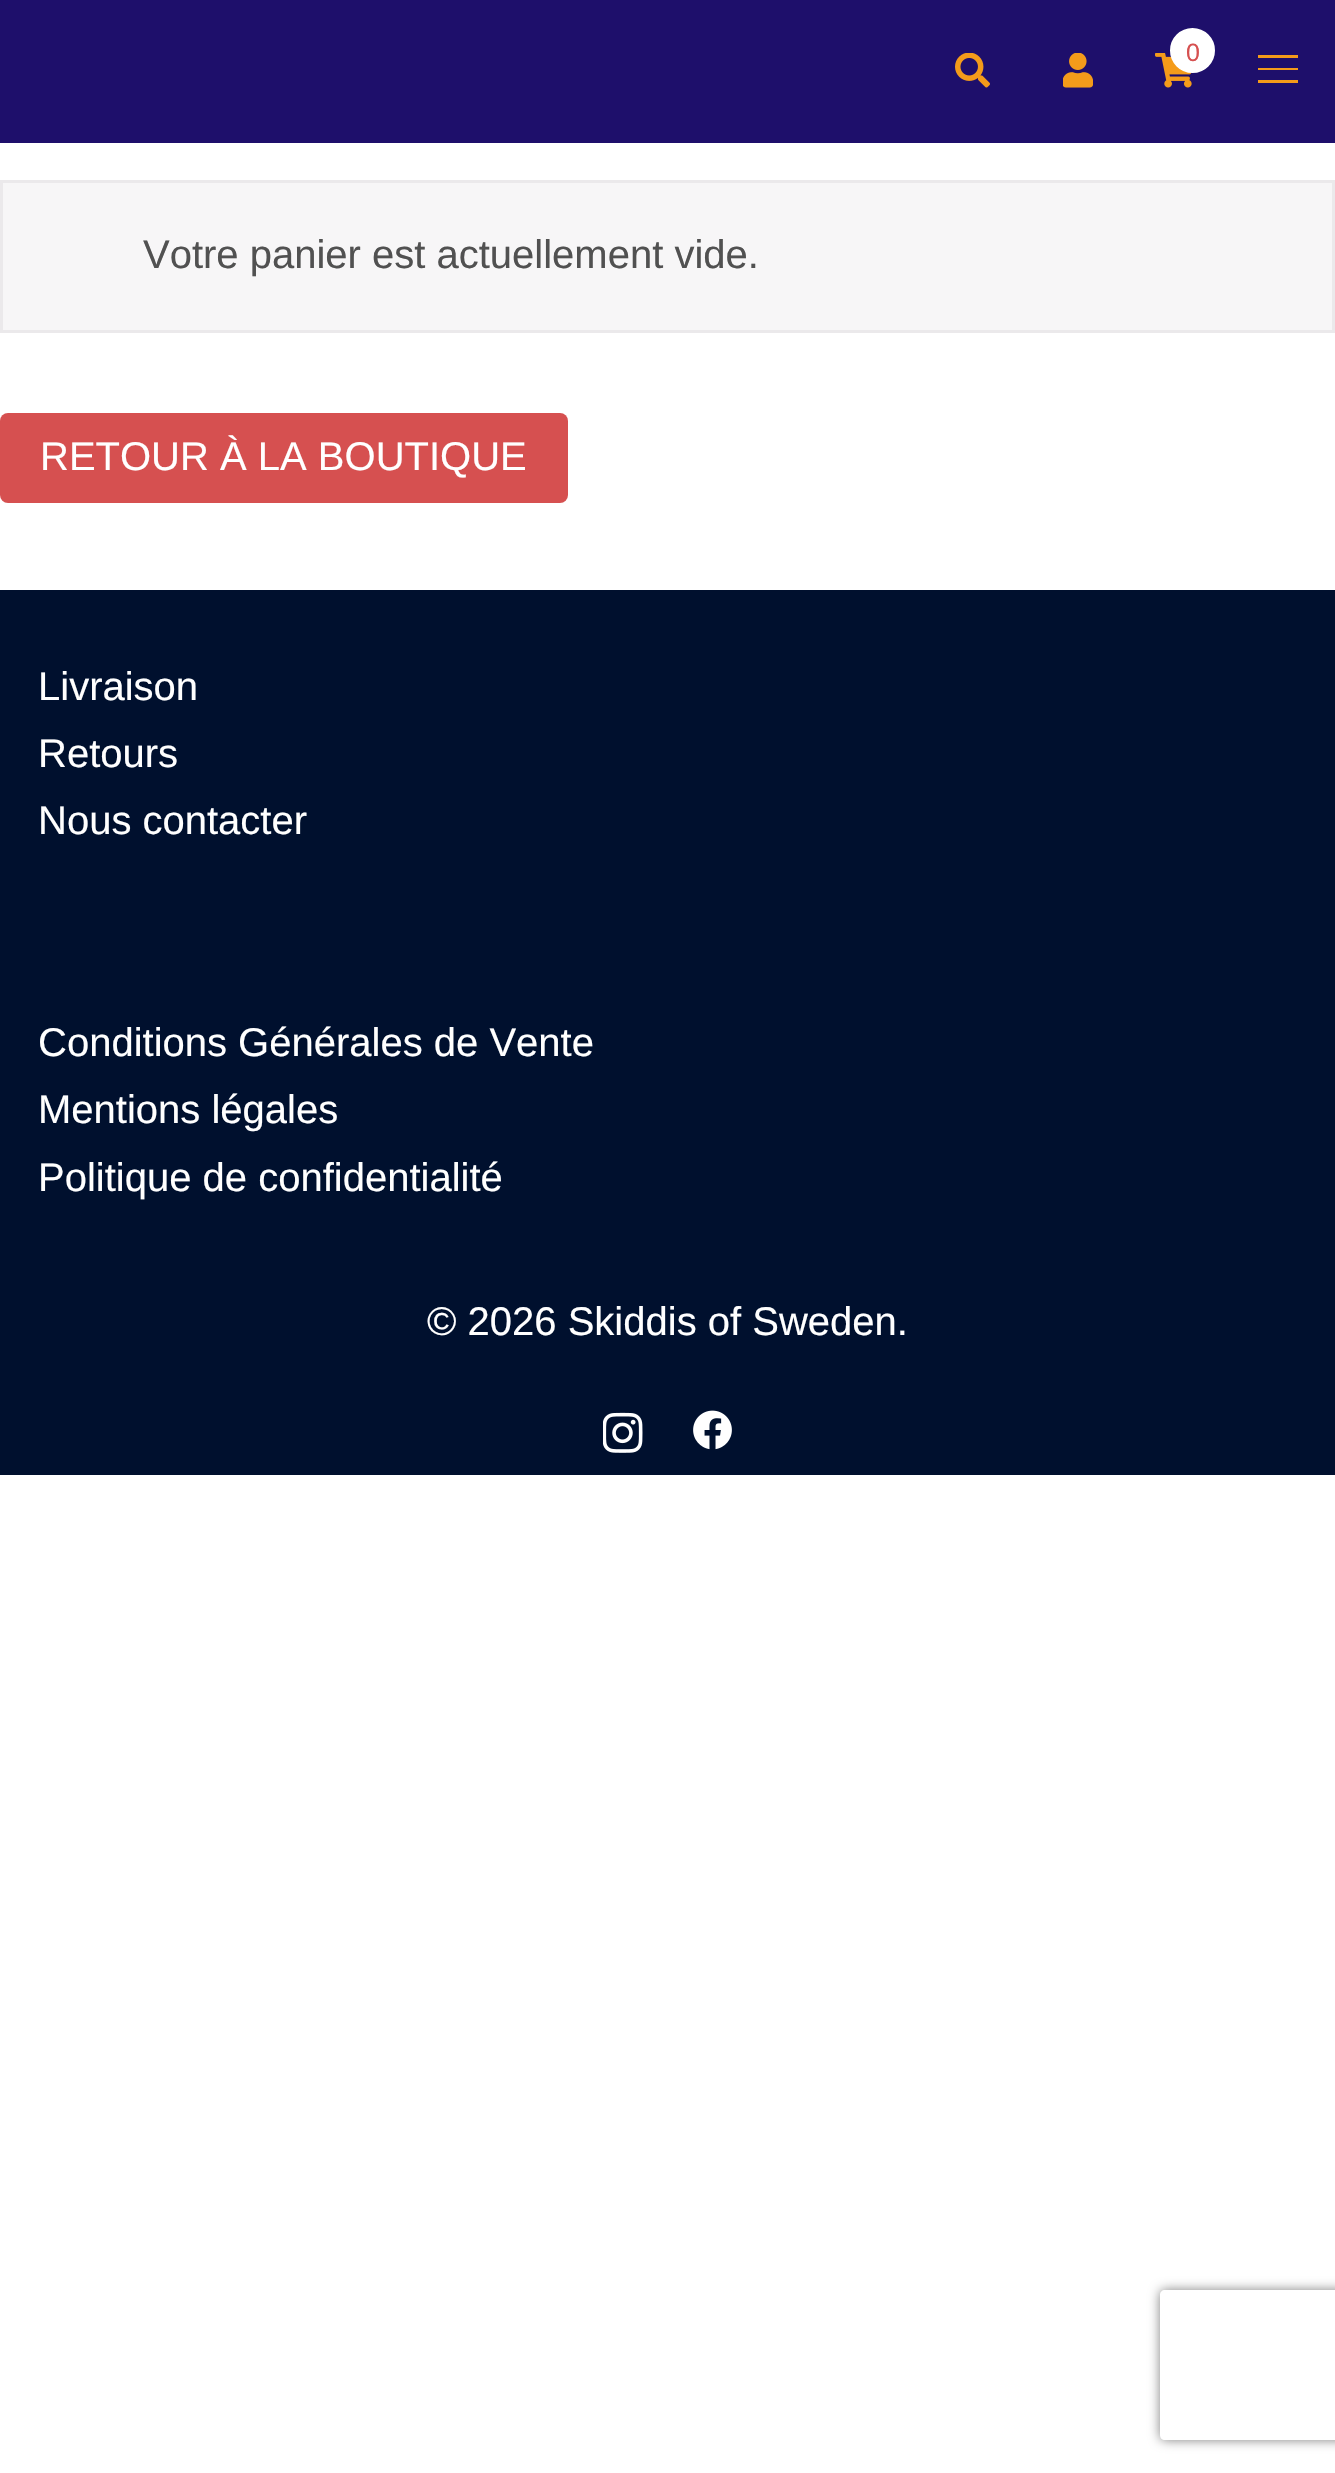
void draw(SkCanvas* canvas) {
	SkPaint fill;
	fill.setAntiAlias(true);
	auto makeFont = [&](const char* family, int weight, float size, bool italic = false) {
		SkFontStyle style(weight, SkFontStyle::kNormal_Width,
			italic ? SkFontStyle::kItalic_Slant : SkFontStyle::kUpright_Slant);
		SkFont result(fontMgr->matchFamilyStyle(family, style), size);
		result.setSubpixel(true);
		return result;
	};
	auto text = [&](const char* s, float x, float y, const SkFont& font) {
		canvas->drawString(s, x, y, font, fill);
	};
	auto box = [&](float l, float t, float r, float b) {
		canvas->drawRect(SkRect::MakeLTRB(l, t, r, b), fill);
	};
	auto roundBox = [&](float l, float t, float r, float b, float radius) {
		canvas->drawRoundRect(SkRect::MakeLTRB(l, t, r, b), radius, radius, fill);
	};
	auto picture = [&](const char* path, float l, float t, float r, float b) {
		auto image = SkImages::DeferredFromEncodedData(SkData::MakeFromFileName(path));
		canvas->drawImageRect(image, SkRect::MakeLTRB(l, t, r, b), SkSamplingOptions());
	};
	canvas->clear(0xFFFFFFFF);
	fill.setColor(0xFF1E0F6B);
	box(0, 0, 1335, 143);
	picture("image0.png", 955, 53, 990, 88);
	picture("image1.png", 1063, 53, 1093, 88);
	picture("image2.png", 1155, 53, 1192, 88);
	fill.setColor(0xFFFFFFFF);
	canvas->drawCircle(1192.5f, 50.5f, 21, fill);
	fill.setStyle(SkPaint::kStroke_Style);
	fill.setStrokeWidth(3);
	canvas->drawCircle(1192.5f, 50.5f, 21, fill);
	fill.setStyle(SkPaint::kFill_Style);
	fill.setColor(0xFFF49B1A);
	box(1258, 55, 1298, 58);
	box(1258, 68, 1298, 70);
	box(1258, 80, 1298, 83);
	fill.setColor(0xFFF7F6F7);
	canvas->drawRect(SkRect::MakeLTRB(1.5f, 181.5f, 1333.5f, 331.5f), fill);
	fill.setStyle(SkPaint::kStroke_Style);
	fill.setColor(0xFFEBE9EB);
	canvas->drawRect(SkRect::MakeLTRB(1.5f, 181.5f, 1333.5f, 331.5f), fill);
	fill.setStyle(SkPaint::kFill_Style);
	fill.setColor(0xFFD65050);
	roundBox(0, 413, 568, 503, 8);
	fill.setColor(0xFF00102E);
	box(0, 590, 1335, 1475);
	picture("image3.png", 603, 1412, 643, 1453);
	picture("image4.png", 693, 1410, 732, 1450);
	canvas->save();
	canvas->clipPath(SkPathBuilder(SkPathFillType::kEvenOdd).moveTo(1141, 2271).lineTo(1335, 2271).lineTo(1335, 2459).lineTo(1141, 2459).close().moveTo(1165, 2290).lineTo(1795, 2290).cubicTo(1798, 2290, 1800, 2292, 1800, 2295).lineTo(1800, 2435).cubicTo(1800, 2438, 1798, 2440, 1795, 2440).lineTo(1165, 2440).cubicTo(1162, 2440, 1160, 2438, 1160, 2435).lineTo(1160, 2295).cubicTo(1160, 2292, 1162, 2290, 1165, 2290).close().detach(), true);
	fill.setColor(0xFF808080);
	fill.setMaskFilter(SkMaskFilter::MakeBlur(kNormal_SkBlurStyle, 6));
	canvas->drawRoundRect(SkRect::MakeLTRB(1160, 2290, 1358, 2440), 5, 5, fill);
	fill.setMaskFilter(nullptr);
	canvas->restore();
	auto font1 = makeFont("Liberation Sans", 400, 25);
	fill.setColor(0xFFD65050);
	text("0", 1186, 61, font1);
	auto font2 = makeFont("Liberation Sans", 400, 40);
	fill.setColor(0xFF515151);
	text("Votre panier est actuellement vide.", 143, 268, font2);
	fill.setColor(0xFFFFFFFF);
	text("RETOUR À LA BOUTIQUE", 40, 470, font2);
	text("Livraison", 38, 700, font2);
	text("Retours", 38, 767, font2);
	text("Nous contacter", 38, 834, font2);
	text("Conditions Générales de Vente", 38, 1056, font2);
	text("Mentions légales", 38, 1123, font2);
	text("Politique de confidentialité", 38, 1191, font2);
	text("© 2026 Skiddis of Sweden.", 427, 1335, font2);
}
